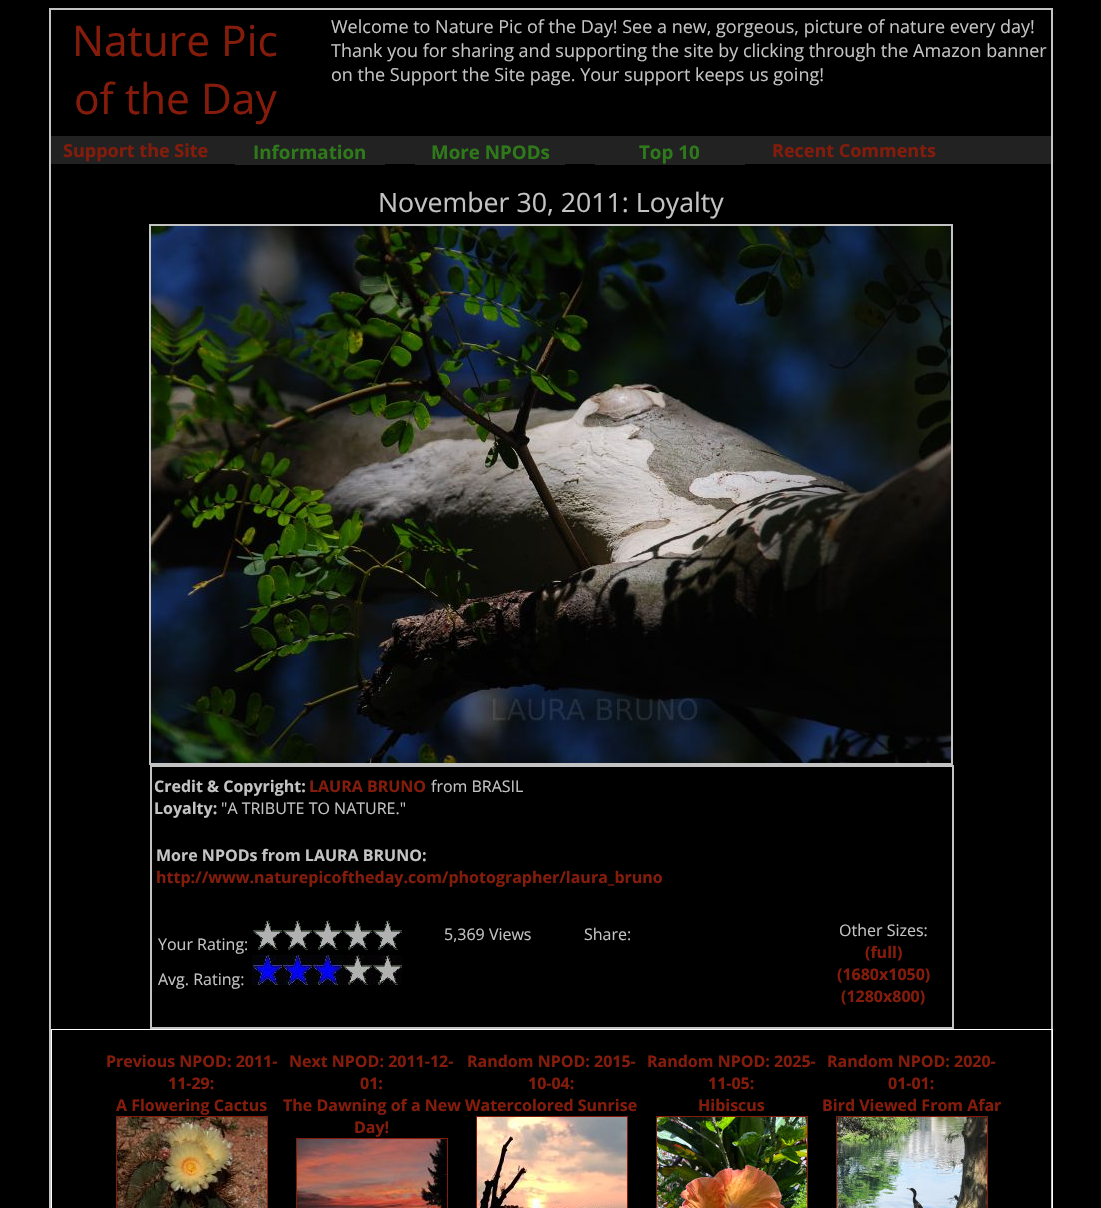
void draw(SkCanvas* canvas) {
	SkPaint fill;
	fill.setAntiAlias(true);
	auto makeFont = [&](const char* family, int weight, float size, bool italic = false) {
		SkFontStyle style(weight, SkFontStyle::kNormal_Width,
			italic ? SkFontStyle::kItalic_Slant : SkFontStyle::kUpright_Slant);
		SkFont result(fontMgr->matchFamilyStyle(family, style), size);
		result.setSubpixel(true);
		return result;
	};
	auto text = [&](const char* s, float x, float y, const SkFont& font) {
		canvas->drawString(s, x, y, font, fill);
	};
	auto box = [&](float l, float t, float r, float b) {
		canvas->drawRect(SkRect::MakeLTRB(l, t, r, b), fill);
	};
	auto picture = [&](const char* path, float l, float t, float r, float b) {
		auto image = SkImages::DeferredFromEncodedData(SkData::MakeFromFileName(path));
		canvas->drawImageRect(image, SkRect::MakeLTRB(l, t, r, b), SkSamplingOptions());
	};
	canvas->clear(0xFF000000);
	fill.setStyle(SkPaint::kStroke_Style);
	fill.setStrokeWidth(2);
	fill.setColor(0xFFC3C3C3);
	canvas->drawRect(SkRect::MakeLTRB(50, 9, 1052, 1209), fill);
	fill.setStyle(SkPaint::kFill_Style);
	fill.setColor(0xFF222222);
	box(51, 136, 1051, 164);
	box(235, 164, 385, 165);
	box(415, 164, 565, 165);
	box(595, 164, 745, 165);
	fill.setStyle(SkPaint::kStroke_Style);
	fill.setColor(0xFFC3C3C3);
	canvas->drawRect(SkRect::MakeLTRB(150, 225, 952, 764), fill);
	picture("image0.png", 151, 226, 951, 763);
	canvas->drawRect(SkRect::MakeLTRB(151, 766, 953, 1028), fill);
	picture("image1.png", 253, 921, 267, 950);
	picture("image2.png", 267, 920, 282, 950);
	picture("image1.png", 283, 921, 297, 950);
	picture("image2.png", 297, 920, 312, 950);
	picture("image1.png", 313, 921, 327, 950);
	picture("image2.png", 327, 920, 342, 950);
	picture("image1.png", 343, 921, 357, 950);
	picture("image2.png", 357, 920, 372, 950);
	picture("image1.png", 373, 921, 387, 950);
	picture("image2.png", 387, 920, 402, 950);
	picture("image3.png", 252, 955, 402, 985);
	fill.setStrokeWidth(1);
	fill.setColor(0xFFFFFFFF);
	canvas->drawRect(SkRect::MakeLTRB(51.5f, 1029.5f, 1052.5f, 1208.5f), fill);
	fill.setColor(0xFF851C0B);
	canvas->drawRect(SkRect::MakeLTRB(116.5f, 1116.5f, 267.5f, 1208.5f), fill);
	picture("image4.png", 117, 1117, 267, 1208);
	canvas->drawRect(SkRect::MakeLTRB(296.5f, 1138.5f, 447.5f, 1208.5f), fill);
	picture("image5.png", 297, 1139, 447, 1208);
	canvas->drawRect(SkRect::MakeLTRB(476.5f, 1116.5f, 627.5f, 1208.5f), fill);
	picture("image6.png", 477, 1117, 627, 1208);
	canvas->drawRect(SkRect::MakeLTRB(656.5f, 1116.5f, 807.5f, 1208.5f), fill);
	picture("image7.png", 657, 1117, 807, 1208);
	canvas->drawRect(SkRect::MakeLTRB(836.5f, 1116.5f, 987.5f, 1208.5f), fill);
	picture("image8.png", 837, 1117, 987, 1208);
	auto font1 = makeFont("Open Sans", 400, 42.5f);
	fill.setStyle(SkPaint::kFill_Style);
	text("Nature Pic", 72, 56, font1);
	text("of the Day", 74, 114, font1);
	auto font2 = makeFont("Open Sans", 400, 18);
	fill.setColor(0xFFC3C3C3);
	text("Welcome to Nature Pic of the Day! See a new, gorgeous, picture of nature every day!", 331, 33, font2);
	text("Thank you for sharing and supporting the site by clicking through the Amazon banner", 331, 57, font2);
	text("on the Support the Site page. Your support keeps us going!", 331, 81, font2);
	auto font3 = makeFont("Open Sans", 700, 18);
	fill.setColor(0xFF851C0B);
	text("Support the Site", 63, 157, font3);
	auto font4 = makeFont("Open Sans", 700, 18.75f);
	fill.setColor(0xFF2E791A);
	text("Information", 253, 159, font4);
	text("More NPODs", 431, 159, font4);
	text("Top 10", 639, 159, font4);
	fill.setColor(0xFF851C0B);
	text("Recent Comments", 772, 157, font3);
	auto font5 = makeFont("Open Sans", 400, 26.7f);
	fill.setColor(0xFFC3C3C3);
	text("November 30, 2011: Loyalty", 378, 212, font5);
	auto font6 = makeFont("Open Sans", 700, 16);
	text("Credit & Copyright:", 154, 792, font6);
	fill.setColor(0xFF851C0B);
	text("LAURA BRUNO", 309, 792, font6);
	auto font7 = makeFont("Open Sans", 400, 16);
	fill.setColor(0xFFC3C3C3);
	text("from BRASIL", 431, 792, font7);
	text("Loyalty:", 154, 814, font6);
	text("\"A TRIBUTE TO NATURE.\"", 221, 814, font7);
	text("More NPODs from LAURA BRUNO:", 156, 861, font6);
	fill.setColor(0xFF851C0B);
	text("http://www.naturepicoftheday.com/photographer/laura_bruno", 156, 883, font6);
	fill.setColor(0xFFC3C3C3);
	text("5,369 Views", 444, 940, font7);
	text("Share:", 584, 940, font7);
	text("Other Sizes:", 839, 936, font7);
	fill.setColor(0xFF851C0B);
	text("(full)", 865, 958, font6);
	text("(1680x1050)", 837, 980, font6);
	text("(1280x800)", 841, 1002, font6);
	fill.setColor(0xFFC3C3C3);
	text("Your Rating:", 158, 950, font7);
	text("Avg. Rating:", 158, 985, font7);
	fill.setColor(0xFF851C0B);
	text("Previous NPOD: 2011-", 106, 1067, font6);
	text("11-29:", 168, 1089, font6);
	text("A Flowering Cactus", 116, 1111, font6);
	text("Next NPOD: 2011-12-", 289, 1067, font6);
	text("01:", 360, 1089, font6);
	text("The Dawning of a New", 283, 1111, font6);
	text("Day!", 354, 1133, font6);
	text("Random NPOD: 2015-", 467, 1067, font6);
	text("10-04:", 528, 1089, font6);
	text("Watercolored Sunrise", 465, 1111, font6);
	text("Random NPOD: 2025-", 647, 1067, font6);
	text("11-05:", 708, 1089, font6);
	text("Hibiscus", 698, 1111, font6);
	text("Random NPOD: 2020-", 827, 1067, font6);
	text("01-01:", 888, 1089, font6);
	text("Bird Viewed From Afar", 822, 1111, font6);
}
